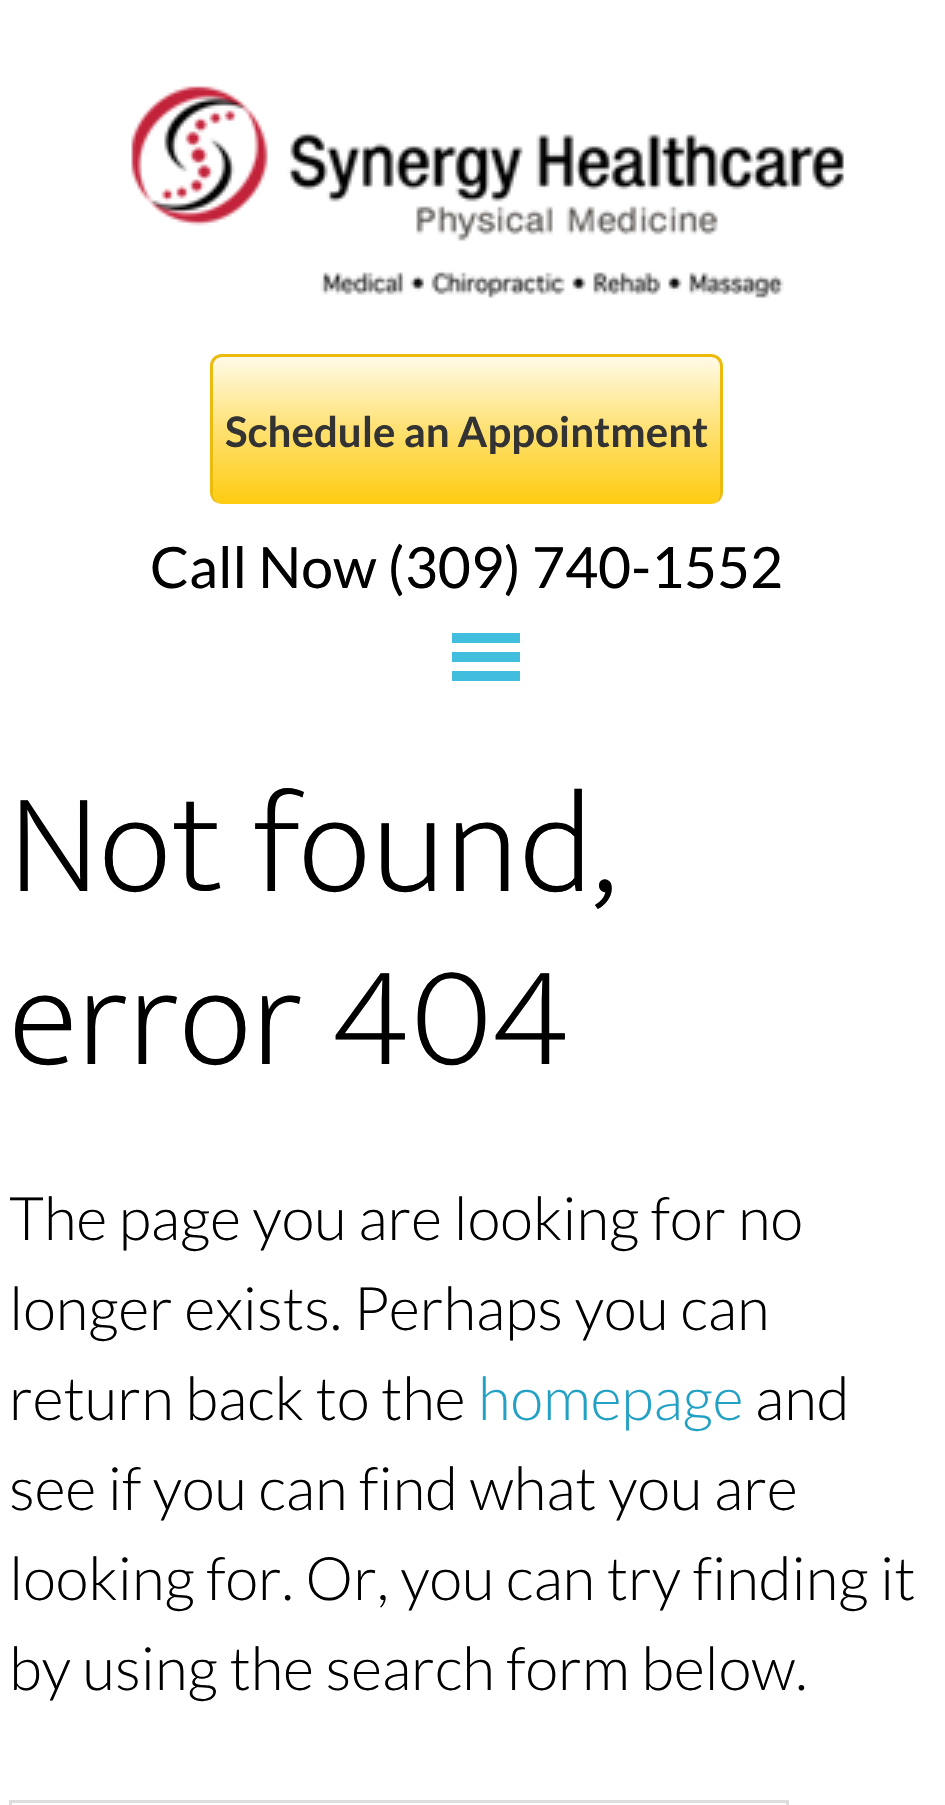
void draw(SkCanvas* canvas) {
	SkPaint fill;
	fill.setAntiAlias(true);
	auto makeFont = [&](const char* family, int weight, float size, bool italic = false) {
		SkFontStyle style(weight, SkFontStyle::kNormal_Width,
			italic ? SkFontStyle::kItalic_Slant : SkFontStyle::kUpright_Slant);
		SkFont result(fontMgr->matchFamilyStyle(family, style), size);
		result.setSubpixel(true);
		return result;
	};
	auto text = [&](const char* s, float x, float y, const SkFont& font) {
		canvas->drawString(s, x, y, font, fill);
	};
	auto picture = [&](const char* path, float l, float t, float r, float b) {
		auto image = SkImages::DeferredFromEncodedData(SkData::MakeFromFileName(path));
		canvas->drawImageRect(image, SkRect::MakeLTRB(l, t, r, b), SkSamplingOptions());
	};
	canvas->clear(0xFFFFFFFF);
	picture("image0.png", 131, 86, 844, 298);
	fill.setColor(0xFFFECC10);
	canvas->drawPath(SkPathBuilder().moveTo(222, 357).lineTo(711, 357).cubicTo(716, 357, 720, 361, 720, 366).lineTo(720, 492).cubicTo(720, 499, 716, 504, 711, 504).lineTo(222, 504).cubicTo(217, 504, 213, 499, 213, 492).lineTo(213, 366).cubicTo(213, 361, 217, 357, 222, 357).close().detach(), fill);
	{
		const SkColor colors[] = {0xE6FFFFFF, 0x66FFFFFF, 0x00FFFFFF};
		const float stops[] = {0, 0.5f, 1};
		const SkPoint ends[] = {{467, 357}, {467, 504}};
		fill.setShader(SkGradientShader::MakeLinear(ends, colors, stops, 3, SkTileMode::kClamp));
		fill.setAlpha(255);
	}
	canvas->drawPath(SkPathBuilder().moveTo(222, 357).lineTo(711, 357).cubicTo(716, 357, 720, 361, 720, 366).lineTo(720, 492).cubicTo(720, 499, 716, 504, 711, 504).lineTo(222, 504).cubicTo(217, 504, 213, 499, 213, 492).lineTo(213, 366).cubicTo(213, 361, 217, 357, 222, 357).close().detach(), fill);
	fill.setShader(nullptr);
	fill.setColor(0xFFEBBC0E);
	canvas->drawPath(SkPathBuilder(SkPathFillType::kEvenOdd).moveTo(222, 354).lineTo(711, 354).cubicTo(718, 354, 723, 359, 723, 366).lineTo(723, 492).cubicTo(723, 499, 718, 504, 711, 504).lineTo(222, 504).cubicTo(215, 504, 210, 499, 210, 492).lineTo(210, 366).cubicTo(210, 359, 215, 354, 222, 354).close().moveTo(222, 357).lineTo(711, 357).cubicTo(716, 357, 720, 361, 720, 366).lineTo(720, 492).cubicTo(720, 499, 716, 504, 711, 504).lineTo(222, 504).cubicTo(217, 504, 213, 499, 213, 492).lineTo(213, 366).cubicTo(213, 361, 217, 357, 222, 357).close().detach(), fill);
	fill.setColor(0xFF41BEDD);
	canvas->drawPath(SkPathBuilder().moveTo(452, 681).lineTo(520, 681).lineTo(520, 671).lineTo(452, 671).close().moveTo(452, 633).lineTo(452, 643).lineTo(520, 643).lineTo(520, 633).close().moveTo(452, 662).lineTo(520, 662).lineTo(520, 652).lineTo(452, 652).close().detach(), fill);
	fill.setStyle(SkPaint::kStroke_Style);
	fill.setStrokeWidth(3);
	fill.setColor(0xFFDDDDDD);
	canvas->drawRect(SkRect::MakeLTRB(10.5f, 1801.5f, 787.5f, 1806.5f), fill);
	auto font1 = makeFont("Lato", 700, 42);
	fill.setStyle(SkPaint::kFill_Style);
	fill.setColor(0xFF333333);
	text("Schedule an Appointment", 225, 447, font1);
	auto font2 = makeFont("Lato", 400, 57);
	fill.setColor(0xFF000000);
	text("Call Now (309) 740-1552", 150, 588, font2);
	auto font3 = makeFont("Ek Mukta", 200, 144);
	text("Not found,", 9, 891, font3);
	text("error 404", 9, 1064, font3);
	auto font4 = makeFont("Lato", 300, 60);
	text("The page you are looking for no", 9, 1240, font4);
	text("longer exists. Perhaps you can", 9, 1330, font4);
	text("return back to the", 9, 1420, font4);
	fill.setColor(0xFF22A1C4);
	text("homepage", 478, 1420, font4);
	fill.setColor(0xFF000000);
	text("and", 755, 1420, font4);
	text("see if you can find what you are", 9, 1510, font4);
	text("looking for. Or, you can try finding it", 9, 1600, font4);
	text("by using the search form below.", 9, 1690, font4);
}
